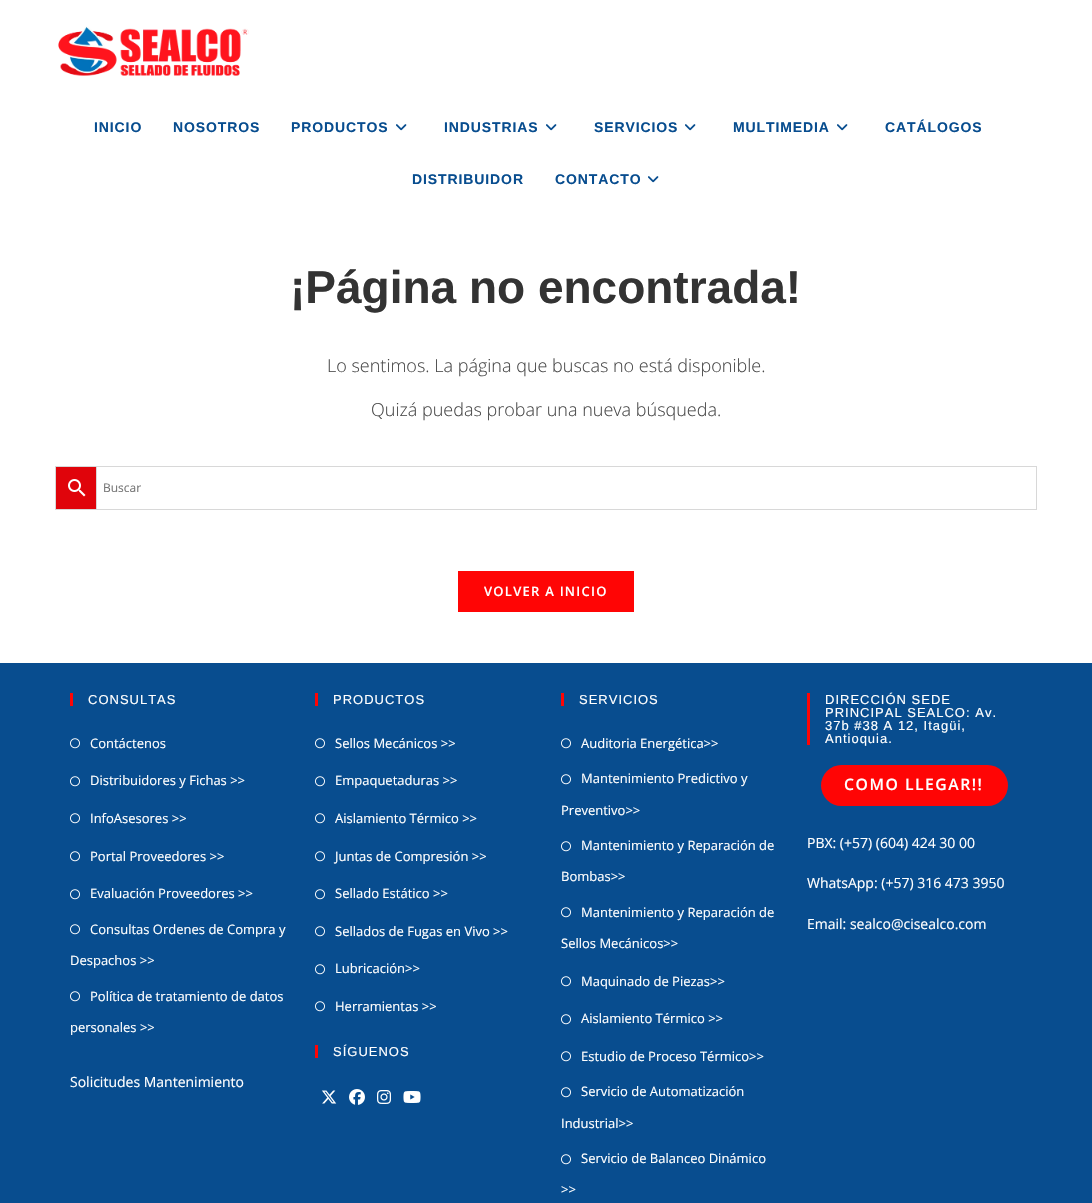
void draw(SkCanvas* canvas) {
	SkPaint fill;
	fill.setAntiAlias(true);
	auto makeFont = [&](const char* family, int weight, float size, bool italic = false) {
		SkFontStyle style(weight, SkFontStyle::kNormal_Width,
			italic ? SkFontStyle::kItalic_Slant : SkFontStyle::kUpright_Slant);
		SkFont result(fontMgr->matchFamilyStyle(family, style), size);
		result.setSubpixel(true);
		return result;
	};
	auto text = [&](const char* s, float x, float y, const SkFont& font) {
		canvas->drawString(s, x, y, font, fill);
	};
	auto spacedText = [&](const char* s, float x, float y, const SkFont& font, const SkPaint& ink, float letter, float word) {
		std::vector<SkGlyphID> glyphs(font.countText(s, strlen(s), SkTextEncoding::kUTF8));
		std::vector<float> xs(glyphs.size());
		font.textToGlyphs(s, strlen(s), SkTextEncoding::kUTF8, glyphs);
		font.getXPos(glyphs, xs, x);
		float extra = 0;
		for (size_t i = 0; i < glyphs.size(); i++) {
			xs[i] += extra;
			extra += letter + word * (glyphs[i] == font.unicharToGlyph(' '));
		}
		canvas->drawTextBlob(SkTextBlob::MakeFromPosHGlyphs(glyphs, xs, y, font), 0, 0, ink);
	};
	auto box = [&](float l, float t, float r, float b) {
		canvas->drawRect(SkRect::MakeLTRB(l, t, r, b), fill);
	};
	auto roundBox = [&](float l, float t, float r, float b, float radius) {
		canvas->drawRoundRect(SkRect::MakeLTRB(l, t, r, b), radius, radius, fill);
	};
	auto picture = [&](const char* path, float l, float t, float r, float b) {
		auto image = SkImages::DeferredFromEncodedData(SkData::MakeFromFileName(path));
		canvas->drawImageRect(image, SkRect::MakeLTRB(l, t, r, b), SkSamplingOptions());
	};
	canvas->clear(0xFFFFFFFF);
	picture("image0.png", 58, 26, 249, 76);
	picture("image1.png", 396, 124, 407, 131);
	picture("image1.png", 546, 124, 557, 131);
	picture("image1.png", 685, 124, 696, 131);
	picture("image1.png", 837, 124, 848, 131);
	picture("image1.png", 648, 176, 659, 183);
	fill.setColor(0xFFE0040B);
	canvas->drawRect(SkRect::MakeLTRB(55.5f, 466.5f, 96.5f, 509.5f), fill);
	fill.setStyle(SkPaint::kStroke_Style);
	fill.setStrokeWidth(1);
	fill.setColor(0xFFD8D8D8);
	canvas->drawRect(SkRect::MakeLTRB(55.5f, 466.5f, 96.5f, 509.5f), fill);
	picture("image2.png", 68, 479, 86, 497);
	canvas->drawRect(SkRect::MakeLTRB(96.5f, 466.5f, 1036.5f, 509.5f), fill);
	fill.setStyle(SkPaint::kFill_Style);
	fill.setColor(0xFFFF0505);
	box(458, 571, 634, 612);
	fill.setColor(0xFF084D8F);
	box(0, 663, 1092, 1203);
	fill.setColor(0xFFFF0505);
	box(70, 693, 73, 706);
	picture("image3.png", 70, 738, 80, 749);
	picture("image3.png", 70, 776, 80, 787);
	picture("image3.png", 70, 813, 80, 824);
	picture("image3.png", 70, 851, 80, 862);
	picture("image3.png", 70, 889, 80, 900);
	picture("image3.png", 70, 924, 80, 935);
	picture("image3.png", 70, 991, 80, 1002);
	box(315, 693, 318, 706);
	picture("image3.png", 315, 738, 325, 749);
	picture("image3.png", 315, 776, 325, 787);
	picture("image3.png", 315, 813, 325, 824);
	picture("image3.png", 315, 851, 325, 862);
	picture("image3.png", 315, 889, 325, 900);
	picture("image3.png", 315, 926, 325, 937);
	picture("image3.png", 315, 964, 325, 975);
	picture("image3.png", 315, 1001, 325, 1012);
	box(315, 1045, 318, 1058);
	picture("image4.png", 322, 1090, 337, 1104);
	picture("image5.png", 349, 1089, 365, 1105);
	picture("image6.png", 377, 1090, 391, 1104);
	picture("image7.png", 403, 1091, 421, 1103);
	box(561, 693, 564, 706);
	picture("image3.png", 561, 738, 571, 749);
	picture("image3.png", 561, 774, 571, 785);
	picture("image3.png", 561, 841, 571, 852);
	picture("image3.png", 561, 907, 571, 918);
	picture("image3.png", 561, 976, 571, 987);
	picture("image3.png", 561, 1014, 571, 1025);
	picture("image3.png", 561, 1051, 571, 1062);
	picture("image3.png", 561, 1087, 571, 1098);
	picture("image3.png", 561, 1154, 571, 1165);
	box(807, 693, 810, 745);
	roundBox(821, 765, 1008, 806, 20.5f);
	auto font1 = makeFont("Liberation Sans", 700, 14);
	fill.setColor(0xFF084D8F);
	spacedText("INICIO", 94, 132, font1, fill, 0.9f, 0);
	spacedText("NOSOTROS", 173, 132, font1, fill, 0.9f, 0);
	spacedText("PRODUCTOS", 291, 132, font1, fill, 0.9f, 0);
	spacedText("INDUSTRIAS", 444, 132, font1, fill, 0.9f, 0);
	spacedText("SERVICIOS", 594, 132, font1, fill, 0.9f, 0);
	spacedText("MULTIMEDIA", 733, 132, font1, fill, 0.9f, 0);
	spacedText("CATÁLOGOS", 885, 132, font1, fill, 0.9f, 0);
	spacedText("DISTRIBUIDOR", 412, 184, font1, fill, 0.9f, 0);
	spacedText("CONTACTO", 555, 184, font1, fill, 0.9f, 0);
	auto font2 = makeFont("Liberation Sans", 700, 46);
	fill.setColor(0xFF333333);
	text("¡Página no encontrada!", 290, 303, font2);
	auto font3 = makeFont("Open Sans", 300, 18);
	fill.setColor(0xFF4A4A4A);
	text("Lo sentimos. La página que buscas no está disponible.", 327, 372, font3);
	text("Quizá puedas probar una nueva búsqueda.", 371, 416, font3);
	auto font4 = makeFont("Open Sans", 400, 12);
	fill.setColor(0xFF757575);
	text("Buscar", 103, 492, font4);
	auto font5 = makeFont("Open Sans", 600, 13);
	fill.setColor(0xFFFFFFFF);
	spacedText("VOLVER A INICIO", 484, 596, font5, fill, 1.25f, 0);
	auto font6 = makeFont("Liberation Sans", 400, 13);
	spacedText("CONSULTAS", 88, 704, font6, fill, 1, 0);
	auto font7 = makeFont("Open Sans", 400, 13);
	text("Contáctenos", 90, 748, font7);
	text("Distribuidores y Fichas >>", 90, 785, font7);
	text("InfoAsesores >>", 90, 823, font7);
	text("Portal Proveedores >>", 90, 861, font7);
	text("Evaluación Proveedores >>", 90, 898, font7);
	text("Consultas Ordenes de Compra y", 90, 934, font7);
	text("Despachos >>", 70, 965, font7);
	text("Política de tratamiento de datos", 90, 1001, font7);
	text("personales >>", 70, 1032, font7);
	auto font8 = makeFont("Open Sans", 400, 14);
	text("Solicitudes Mantenimiento", 70, 1087, font8);
	spacedText("PRODUCTOS", 333, 704, font6, fill, 1, 0);
	text("Sellos Mecánicos >>", 335, 748, font7);
	text("Empaquetaduras >>", 335, 785, font7);
	text("Aislamiento Térmico >>", 335, 823, font7);
	text("Juntas de Compresión >>", 335, 861, font7);
	text("Sellado Estático >>", 335, 898, font7);
	text("Sellados de Fugas en Vivo >>", 335, 936, font7);
	text("Lubricación>>", 335, 973, font7);
	text("Herramientas >>", 335, 1011, font7);
	spacedText("SÍGUENOS", 333, 1056, font6, fill, 1, 0);
	spacedText("SERVICIOS", 579, 704, font6, fill, 1, 0);
	text("Auditoria Energética>>", 581, 748, font7);
	text("Mantenimiento Predictivo y", 581, 783, font7);
	text("Preventivo>>", 561, 815, font7);
	text("Mantenimiento y Reparación de", 581, 850, font7);
	text("Bombas>>", 561, 881, font7);
	text("Mantenimiento y Reparación de", 581, 917, font7);
	text("Sellos Mecánicos>>", 561, 948, font7);
	text("Maquinado de Piezas>>", 581, 986, font7);
	text("Aislamiento Térmico >>", 581, 1023, font7);
	text("Estudio de Proceso Térmico>>", 581, 1061, font7);
	text("Servicio de Automatización", 581, 1096, font7);
	text("Industrial>>", 561, 1128, font7);
	text("Servicio de Balanceo Dinámico", 581, 1163, font7);
	text(">>", 561, 1194, font7);
	spacedText("DIRECCIÓN SEDE", 825, 704, font6, fill, 1, 0);
	spacedText("PRINCIPAL SEALCO: Av.", 825, 717, font6, fill, 1, 0);
	spacedText("37b #38 A 12, Itagüi,", 825, 730, font6, fill, 1, 0);
	spacedText("Antioquia.", 825, 743, font6, fill, 1, 0);
	auto font9 = makeFont("Open Sans", 600, 15.75f);
	spacedText("COMO LLEGAR!!", 844, 790, font9, fill, 1.5f, 0);
	text("PBX: (+57) (604) 424 30 00", 807, 848, font8);
	text("WhatsApp: (+57) 316 473 3950", 807, 888, font8);
	text("Email: sealco@cisealco.com", 807, 929, font8);
}
